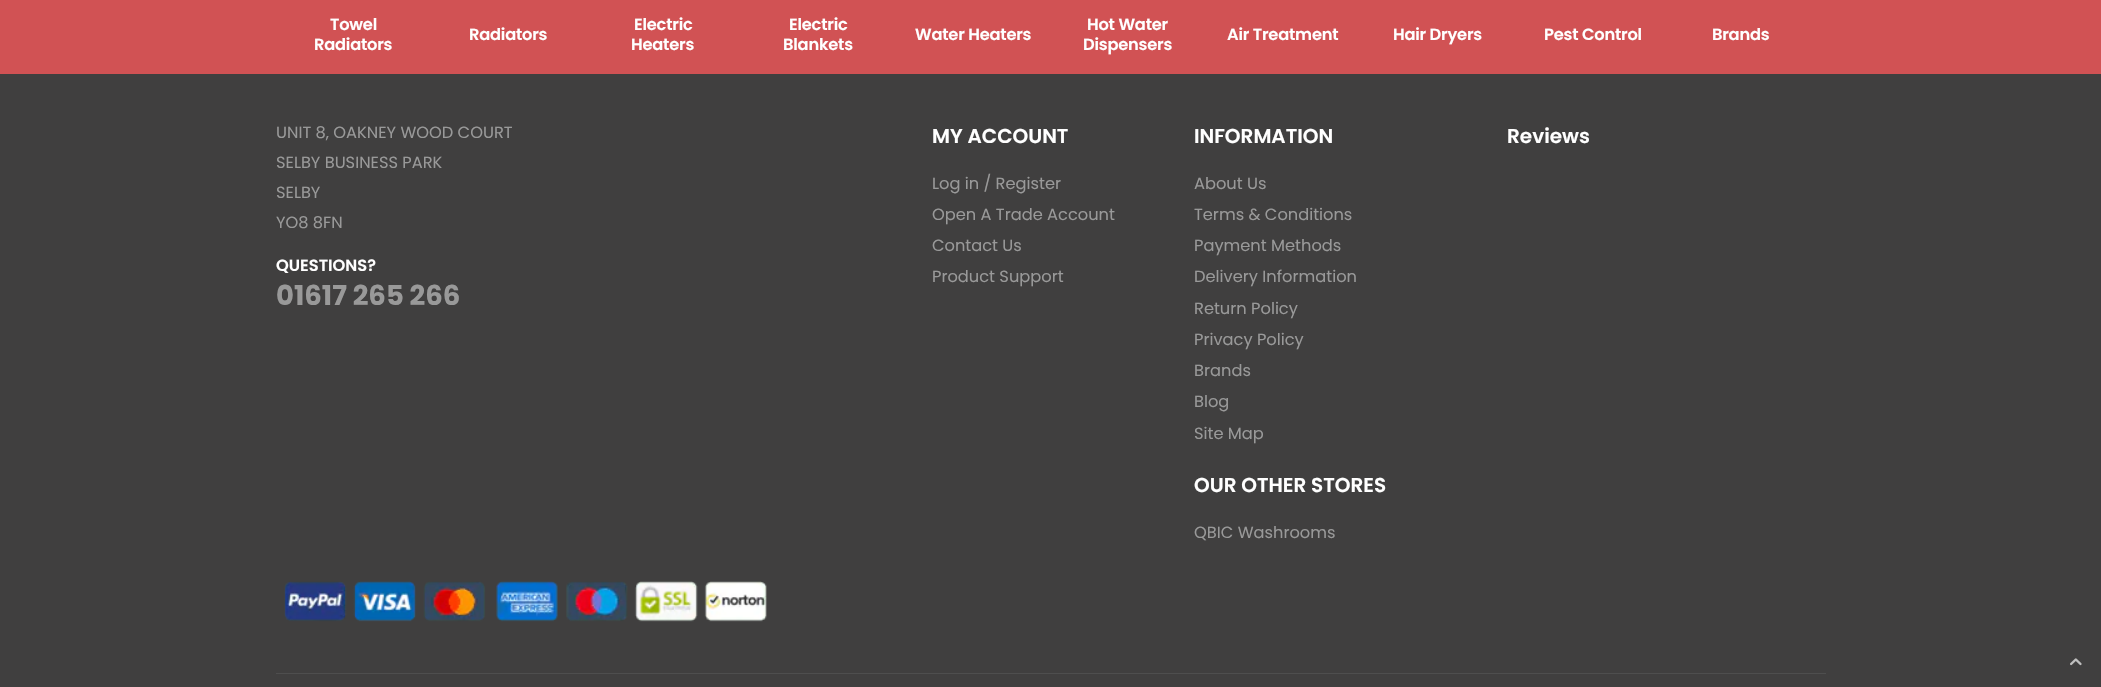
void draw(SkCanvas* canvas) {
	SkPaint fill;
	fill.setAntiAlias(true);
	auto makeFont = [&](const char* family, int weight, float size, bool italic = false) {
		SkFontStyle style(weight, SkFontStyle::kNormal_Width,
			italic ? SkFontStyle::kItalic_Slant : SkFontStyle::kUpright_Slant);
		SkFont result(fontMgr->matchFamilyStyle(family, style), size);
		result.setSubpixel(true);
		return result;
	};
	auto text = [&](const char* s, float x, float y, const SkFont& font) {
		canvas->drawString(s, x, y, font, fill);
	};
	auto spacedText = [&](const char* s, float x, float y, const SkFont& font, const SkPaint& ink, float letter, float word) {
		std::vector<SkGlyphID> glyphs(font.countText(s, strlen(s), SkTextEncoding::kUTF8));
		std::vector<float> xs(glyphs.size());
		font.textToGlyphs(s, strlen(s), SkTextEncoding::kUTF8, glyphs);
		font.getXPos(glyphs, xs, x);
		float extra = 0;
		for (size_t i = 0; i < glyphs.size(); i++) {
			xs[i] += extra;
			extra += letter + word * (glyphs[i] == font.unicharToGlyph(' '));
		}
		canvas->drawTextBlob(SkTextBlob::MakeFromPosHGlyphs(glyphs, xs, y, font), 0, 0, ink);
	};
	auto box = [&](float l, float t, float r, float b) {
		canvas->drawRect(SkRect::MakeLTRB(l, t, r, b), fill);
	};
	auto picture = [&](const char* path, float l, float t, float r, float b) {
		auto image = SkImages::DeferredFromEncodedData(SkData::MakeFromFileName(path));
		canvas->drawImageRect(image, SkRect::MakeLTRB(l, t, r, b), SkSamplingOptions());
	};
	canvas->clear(0xFF403F3F);
	fill.setColor(0xFFD15254);
	box(0, 0, 2101, 74);
	picture("image0.png", 284, 581, 767, 622);
	fill.setColor(0xFF4E4E4E);
	box(276, 673, 1826, 674);
	picture("image1.png", 2070, 658, 2082, 666);
	auto font1 = makeFont("Poppins", 600, 16.25f);
	fill.setColor(0xFFFFFFFF);
	spacedText("Towel", 330, 30, font1, fill, -0.2f, 0);
	spacedText("Radiators", 314, 50, font1, fill, -0.2f, 0);
	spacedText("Radiators", 469, 40, font1, fill, -0.2f, 0);
	spacedText("Electric", 634, 30, font1, fill, -0.2f, 0);
	spacedText("Heaters", 631, 50, font1, fill, -0.2f, 0);
	spacedText("Electric", 789, 30, font1, fill, -0.2f, 0);
	spacedText("Blankets", 783, 50, font1, fill, -0.2f, 0);
	spacedText("Water Heaters", 915, 40, font1, fill, -0.2f, 0);
	spacedText("Hot Water", 1087, 30, font1, fill, -0.2f, 0);
	spacedText("Dispensers", 1083, 50, font1, fill, -0.2f, 0);
	spacedText("Air Treatment", 1227, 40, font1, fill, -0.2f, 0);
	spacedText("Hair Dryers", 1393, 40, font1, fill, -0.2f, 0);
	spacedText("Pest Control", 1544, 40, font1, fill, -0.2f, 0);
	spacedText("Brands", 1712, 40, font1, fill, -0.2f, 0);
	auto font2 = makeFont("Poppins", 400, 16.25f);
	fill.setColor(0xFF999999);
	text("UNIT 8, OAKNEY WOOD COURT", 276, 138, font2);
	text("SELBY BUSINESS PARK", 276, 168, font2);
	text("SELBY", 276, 198, font2);
	text("YO8 8FN", 276, 228, font2);
	fill.setColor(0xFFFFFFFF);
	text("QUESTIONS?", 276, 271, font1);
	auto font3 = makeFont("Poppins", 700, 27.5f);
	fill.setColor(0xFF999999);
	text("01617 265 266", 276, 305, font3);
	auto font4 = makeFont("Poppins", 600, 20);
	fill.setColor(0xFFFFFFFF);
	text("MY ACCOUNT", 932, 143, font4);
	fill.setColor(0xFF999999);
	text("Log in / Register", 932, 189, font2);
	text("Open A Trade Account", 932, 220, font2);
	text("Contact Us", 932, 251, font2);
	text("Product Support", 932, 282, font2);
	fill.setColor(0xFFFFFFFF);
	text("INFORMATION", 1194, 143, font4);
	fill.setColor(0xFF999999);
	text("About Us", 1194, 189, font2);
	text("Terms & Conditions", 1194, 220, font2);
	text("Payment Methods", 1194, 251, font2);
	text("Delivery Information", 1194, 282, font2);
	text("Return Policy", 1194, 314, font2);
	text("Privacy Policy", 1194, 345, font2);
	text("Brands", 1194, 376, font2);
	text("Blog", 1194, 407, font2);
	text("Site Map", 1194, 439, font2);
	fill.setColor(0xFFFFFFFF);
	text("OUR OTHER STORES", 1194, 492, font4);
	fill.setColor(0xFF999999);
	text("QBIC Washrooms", 1194, 538, font2);
	fill.setColor(0xFFFFFFFF);
	text("Reviews", 1507, 143, font4);
}
